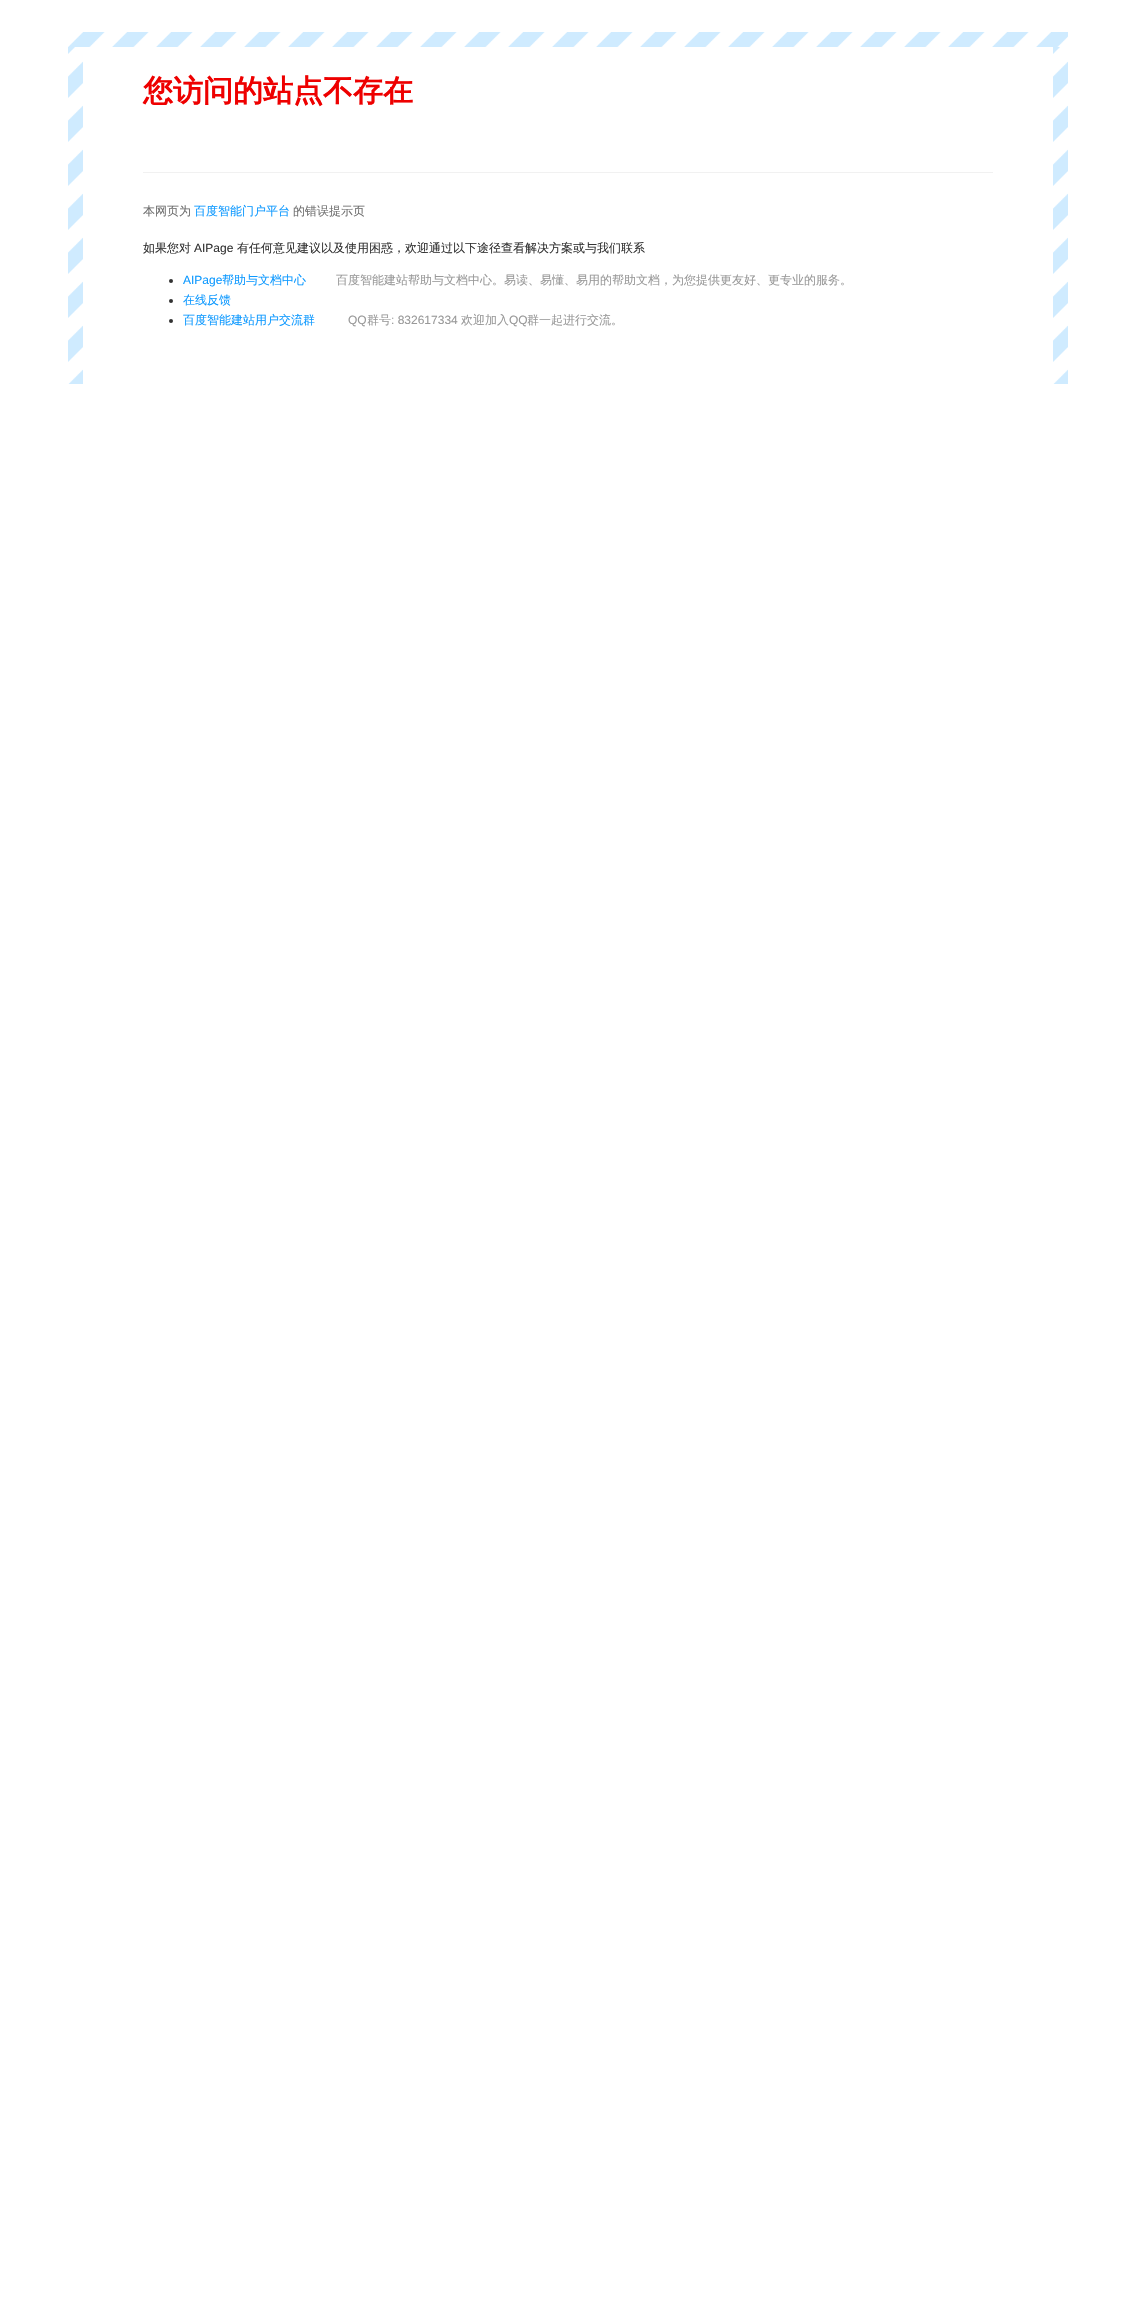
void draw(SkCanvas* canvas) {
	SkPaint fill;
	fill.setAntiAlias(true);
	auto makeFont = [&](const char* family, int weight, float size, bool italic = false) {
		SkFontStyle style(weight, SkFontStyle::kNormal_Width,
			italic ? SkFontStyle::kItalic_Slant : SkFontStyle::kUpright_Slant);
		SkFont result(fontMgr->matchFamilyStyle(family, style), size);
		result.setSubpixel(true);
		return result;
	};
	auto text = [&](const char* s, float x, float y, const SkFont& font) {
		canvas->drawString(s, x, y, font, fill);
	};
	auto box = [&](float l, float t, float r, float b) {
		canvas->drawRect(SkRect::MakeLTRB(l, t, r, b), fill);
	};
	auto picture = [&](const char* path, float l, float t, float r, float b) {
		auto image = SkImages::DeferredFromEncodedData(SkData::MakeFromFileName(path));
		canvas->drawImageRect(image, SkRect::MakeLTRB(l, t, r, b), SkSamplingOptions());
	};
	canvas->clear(0xFFFFFFFF);
	picture("image0.png", 68, 32, 1068, 47);
	picture("image1.png", 68, 47, 83, 384);
	fill.setColor(0xFFF1F1F1);
	box(143, 172, 993, 173);
	fill.setColor(0xFF333333);
	canvas->drawCircle(171, 281, 2, fill);
	canvas->drawCircle(171, 301, 2, fill);
	canvas->drawCircle(171, 321, 2, fill);
	picture("image1.png", 1053, 47, 1068, 384);
	auto font1 = makeFont("WenQuanYi Zen Hei", 700, 30);
	fill.setColor(0xFFEE0000);
	text("您访问的站点不存在", 143, 101, font1);
	auto font2 = makeFont("WenQuanYi Zen Hei", 500, 12);
	fill.setColor(0xFF6F6F6F);
	text("本网页为", 143, 215, font2);
	fill.setColor(0xFF0D99FF);
	text("百度智能门户平台", 194, 215, font2);
	fill.setColor(0xFF6F6F6F);
	text("的错误提示页", 293, 215, font2);
	fill.setColor(0xFF333333);
	text("如果您对", 143, 252, font2);
	auto font3 = makeFont("Liberation Sans", 400, 12);
	text("AIPage", 194, 252, font3);
	text("有任何意见建议以及使用困惑，欢迎通过以下途径查看解决方案或与我们联系", 237, 252, font2);
	fill.setColor(0xFF0D99FF);
	text("AIPage", 183, 284, font3);
	text("帮助与文档中心", 222, 284, font2);
	fill.setColor(0xFF999999);
	text("百度智能建站帮助与文档中心。易读、易懂、易用的帮助文档，为您提供更友好、更专业的服务。", 336, 284, font2);
	fill.setColor(0xFF0D99FF);
	text("在线反馈", 183, 304, font2);
	text("百度智能建站用户交流群", 183, 324, font2);
	fill.setColor(0xFF999999);
	text("QQ", 348, 324, font3);
	text("群号", 367, 324, font2);
	text(": 832617334", 391, 324, font3);
	text("欢迎加入", 461, 324, font2);
	text("QQ", 509, 324, font3);
	text("群一起进行交流。", 527, 324, font2);
}
